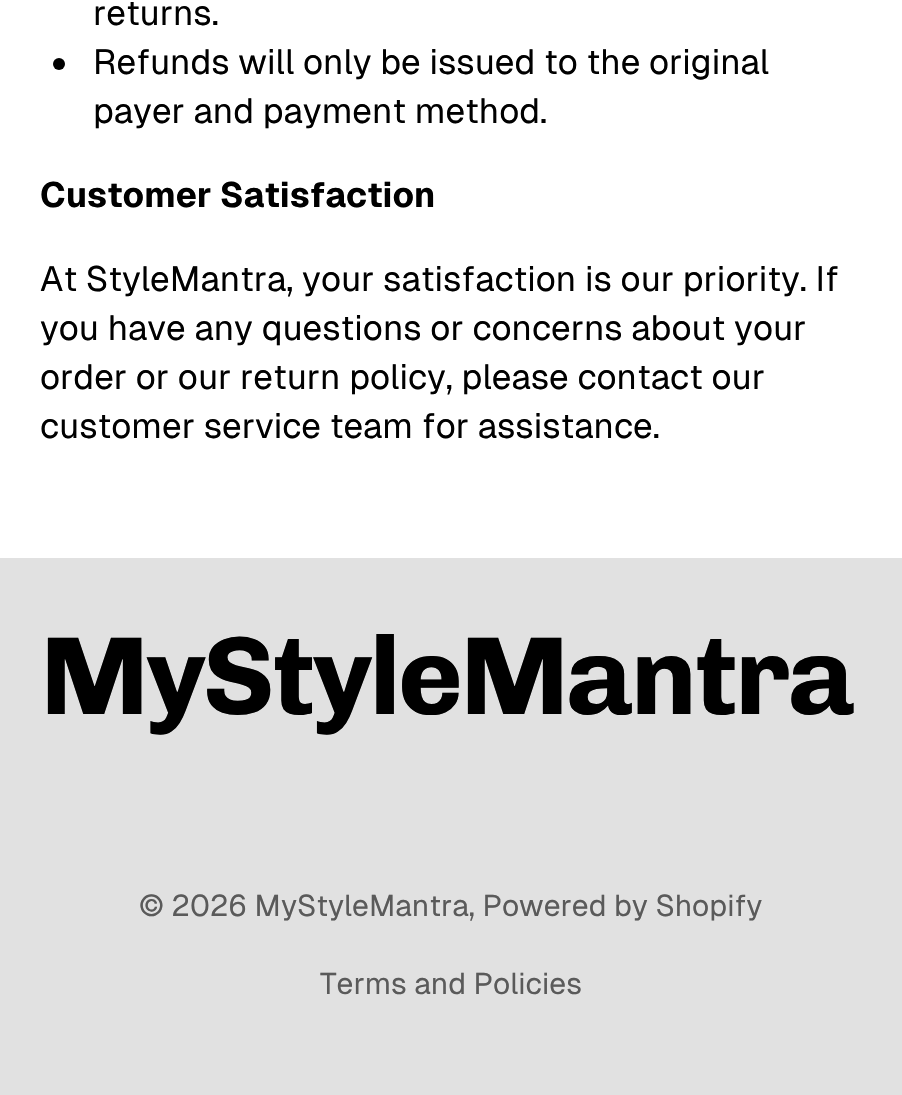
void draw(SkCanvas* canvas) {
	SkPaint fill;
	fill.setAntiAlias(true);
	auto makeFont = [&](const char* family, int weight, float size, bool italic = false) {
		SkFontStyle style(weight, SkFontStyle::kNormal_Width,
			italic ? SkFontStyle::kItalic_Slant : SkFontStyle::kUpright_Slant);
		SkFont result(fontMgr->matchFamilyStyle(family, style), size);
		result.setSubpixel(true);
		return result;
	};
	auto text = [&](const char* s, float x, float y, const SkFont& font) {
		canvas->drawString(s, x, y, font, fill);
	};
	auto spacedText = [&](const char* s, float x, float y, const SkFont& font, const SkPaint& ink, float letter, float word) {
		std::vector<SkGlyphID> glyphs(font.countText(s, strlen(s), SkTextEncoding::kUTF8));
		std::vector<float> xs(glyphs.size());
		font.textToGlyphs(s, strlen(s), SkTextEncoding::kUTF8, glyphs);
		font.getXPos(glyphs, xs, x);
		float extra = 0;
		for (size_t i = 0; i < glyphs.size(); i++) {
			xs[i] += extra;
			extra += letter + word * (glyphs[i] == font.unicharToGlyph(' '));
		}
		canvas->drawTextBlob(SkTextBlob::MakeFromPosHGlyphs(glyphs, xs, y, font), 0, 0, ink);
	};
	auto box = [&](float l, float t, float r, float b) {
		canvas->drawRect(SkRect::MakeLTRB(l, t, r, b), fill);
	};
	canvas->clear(0xFFFFFFFF);
	fill.setColor(0xFF000000);
	canvas->drawCircle(59, 64, 6, fill);
	fill.setColor(0xFFE1E1E1);
	box(0, 558, 902, 1095);
	auto font1 = makeFont("Geist", 400, 35);
	fill.setColor(0xFF000000);
	text("returns.", 93, 25, font1);
	text("Refunds will only be issued to the original", 93, 74, font1);
	text("payer and payment method.", 93, 123, font1);
	auto font2 = makeFont("Geist", 700, 35);
	text("Customer Satisfaction", 40, 207, font2);
	text("At StyleMantra, your satisfaction is our priority. If", 40, 291, font1);
	text("you have any questions or concerns about your", 40, 340, font1);
	text("order or our return policy, please contact our", 40, 389, font1);
	text("customer service team for assistance.", 40, 438, font1);
	auto font3 = makeFont("Chivo", 700, 111.25f);
	spacedText("MyStyleMantra", 40, 714, font3, fill, -3.3f, 0);
	auto font4 = makeFont("Geist", 400, 30);
	fill.setColor(0xFF5A5A5A);
	text("© 2026 MyStyleMantra, Powered by Shopify", 139, 916, font4);
	text("Terms and Policies", 320, 994, font4);
}
